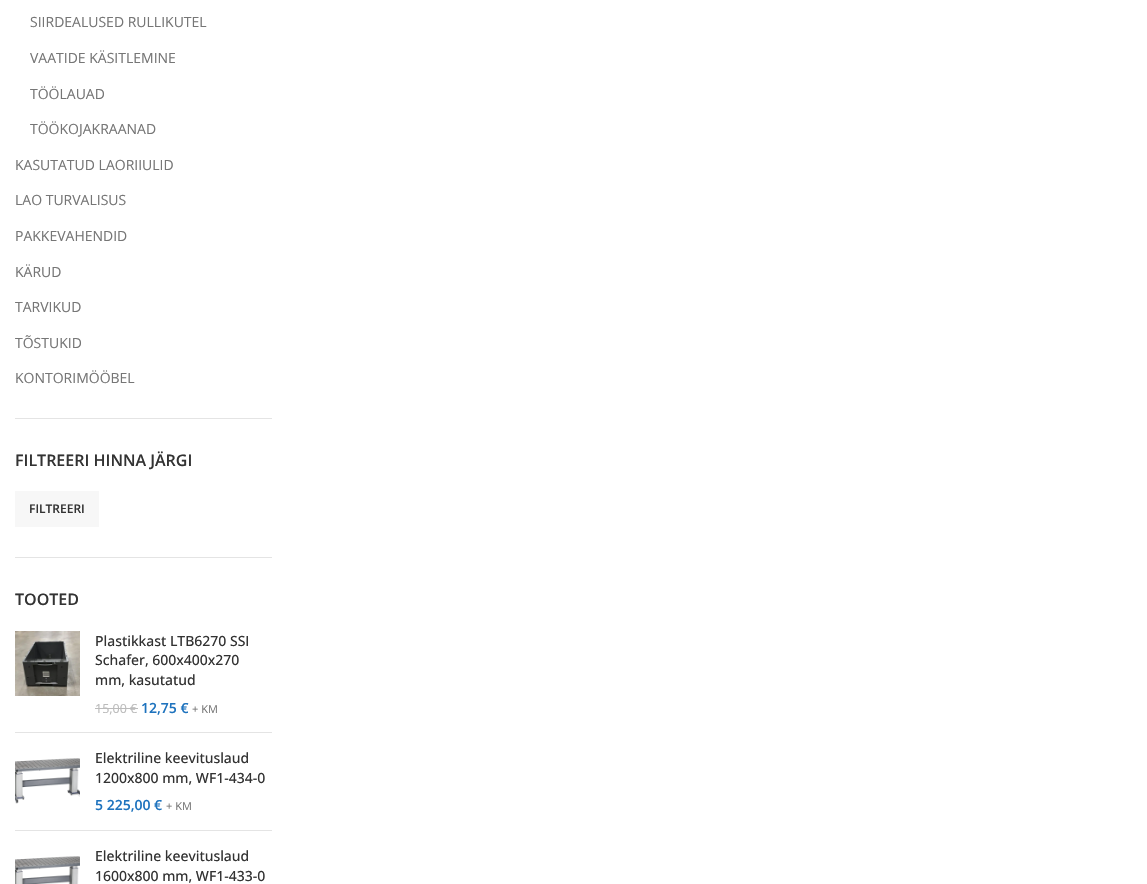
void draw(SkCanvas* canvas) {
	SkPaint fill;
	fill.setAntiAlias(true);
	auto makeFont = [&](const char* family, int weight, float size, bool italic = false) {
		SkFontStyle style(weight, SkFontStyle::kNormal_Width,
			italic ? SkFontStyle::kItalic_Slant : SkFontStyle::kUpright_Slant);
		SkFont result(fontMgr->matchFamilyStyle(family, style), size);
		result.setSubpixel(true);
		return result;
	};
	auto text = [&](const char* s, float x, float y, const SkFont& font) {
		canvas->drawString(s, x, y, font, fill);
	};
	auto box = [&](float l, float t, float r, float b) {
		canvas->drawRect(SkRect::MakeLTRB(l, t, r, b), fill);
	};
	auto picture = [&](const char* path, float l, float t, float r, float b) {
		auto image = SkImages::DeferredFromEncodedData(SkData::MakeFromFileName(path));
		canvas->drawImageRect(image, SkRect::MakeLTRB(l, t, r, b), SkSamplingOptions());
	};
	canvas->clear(0xFFFFFFFF);
	fill.setColor(0xFFE4E4E4);
	box(15, 418, 272, 419);
	box(15, 557, 272, 558);
	fill.setColor(0xFFF7F7F7);
	box(15, 491, 99, 527);
	fill.setColor(0xFFE4E4E4);
	box(15, 732, 272, 733);
	picture("image0.png", 15, 631, 80, 696);
	fill.setColor(0xFFBBBBBB);
	box(95, 708, 138, 709);
	fill.setColor(0xFFE4E4E4);
	box(15, 830, 272, 831);
	picture("image1.png", 15, 758, 80, 804);
	picture("image2.png", 15, 856, 80, 884);
	auto font1 = makeFont("Open Sans", 400, 14);
	fill.setColor(0xFF767676);
	text("SIIRDEALUSED RULLIKUTEL", 30, 27, font1);
	text("VAATIDE KÄSITLEMINE", 30, 63, font1);
	text("TÖÖLAUAD", 30, 99, font1);
	text("TÖÖKOJAKRAANAD", 30, 134, font1);
	text("KASUTATUD LAORIIULID", 15, 170, font1);
	text("LAO TURVALISUS", 15, 205, font1);
	text("PAKKEVAHENDID", 15, 241, font1);
	text("KÄRUD", 15, 277, font1);
	text("TARVIKUD", 15, 312, font1);
	text("TÕSTUKID", 15, 348, font1);
	text("KONTORIMÖÖBEL", 15, 383, font1);
	auto font2 = makeFont("Open Sans", 600, 16);
	fill.setColor(0xFF333333);
	text("FILTREERI HINNA JÄRGI", 15, 466, font2);
	auto font3 = makeFont("Open Sans", 600, 12);
	text("FILTREERI", 29, 513, font3);
	text("TOOTED", 15, 605, font2);
	auto font4 = makeFont("Open Sans", 500, 14);
	text("Plastikkast LTB6270 SSI", 95, 646, font4);
	text("Schafer, 600x400x270", 95, 665, font4);
	text("mm, kasutatud", 95, 685, font4);
	auto font5 = makeFont("Open Sans", 400, 12.5f);
	fill.setColor(0xFFBBBBBB);
	text("15,00 €", 95, 713, font5);
	auto font6 = makeFont("Open Sans", 600, 14);
	fill.setColor(0xFF1E73BE);
	text("12,75 €", 141, 713, font6);
	auto font7 = makeFont("Open Sans", 400, 11);
	fill.setColor(0xFF767676);
	text("+ KM", 192, 713, font7);
	fill.setColor(0xFF333333);
	text("Elektriline keevituslaud", 95, 763, font4);
	text("1200x800 mm, WF1-434-0", 95, 783, font4);
	fill.setColor(0xFF1E73BE);
	text("5 225,00 €", 95, 810, font6);
	fill.setColor(0xFF767676);
	text("+ KM", 166, 810, font7);
	fill.setColor(0xFF333333);
	text("Elektriline keevituslaud", 95, 861, font4);
	text("1600x800 mm, WF1-433-0", 95, 881, font4);
}
